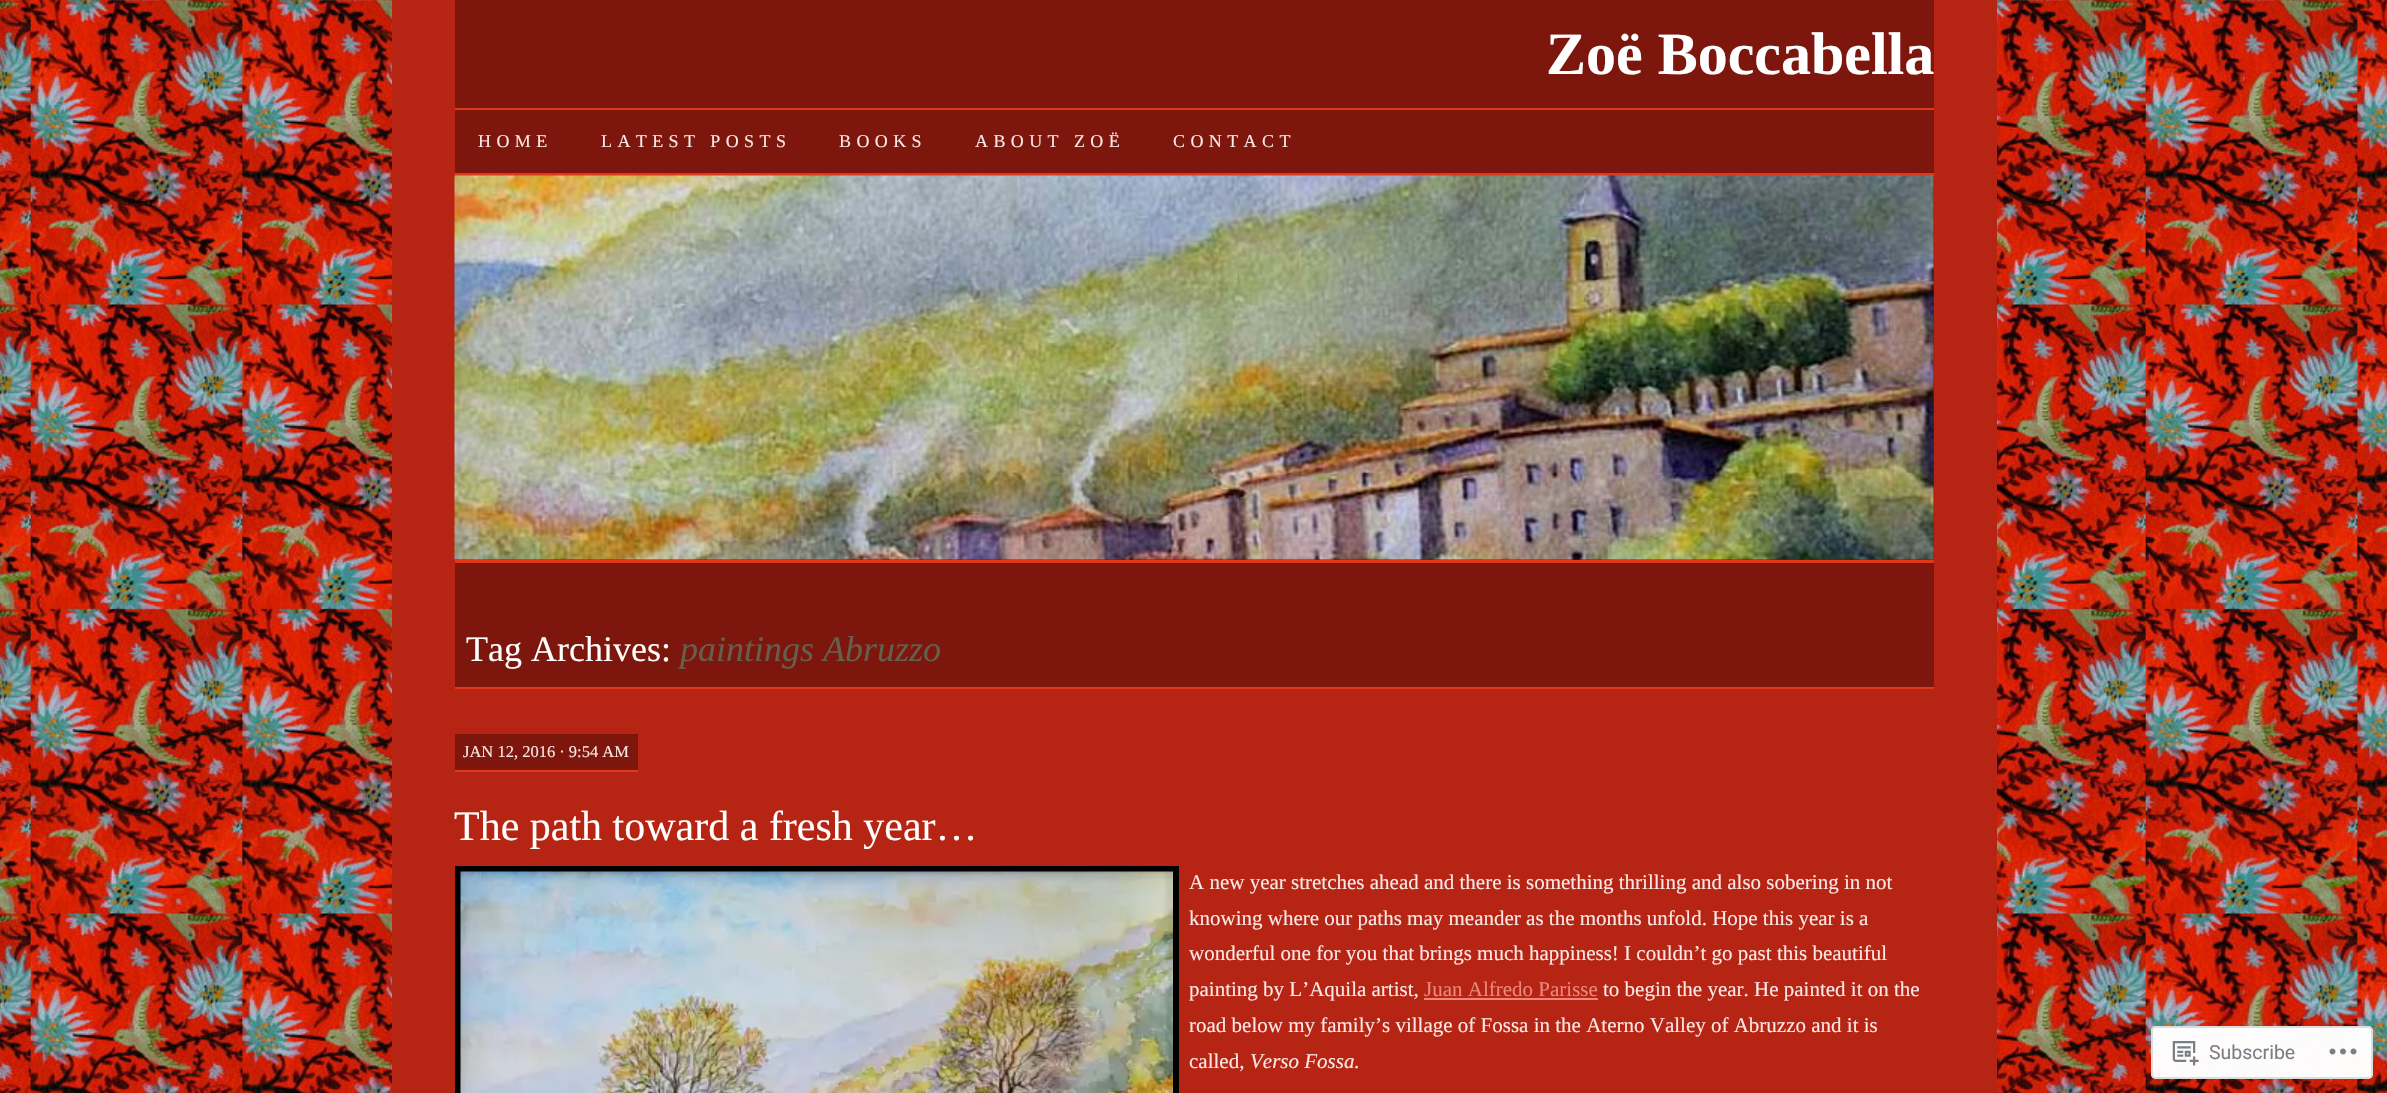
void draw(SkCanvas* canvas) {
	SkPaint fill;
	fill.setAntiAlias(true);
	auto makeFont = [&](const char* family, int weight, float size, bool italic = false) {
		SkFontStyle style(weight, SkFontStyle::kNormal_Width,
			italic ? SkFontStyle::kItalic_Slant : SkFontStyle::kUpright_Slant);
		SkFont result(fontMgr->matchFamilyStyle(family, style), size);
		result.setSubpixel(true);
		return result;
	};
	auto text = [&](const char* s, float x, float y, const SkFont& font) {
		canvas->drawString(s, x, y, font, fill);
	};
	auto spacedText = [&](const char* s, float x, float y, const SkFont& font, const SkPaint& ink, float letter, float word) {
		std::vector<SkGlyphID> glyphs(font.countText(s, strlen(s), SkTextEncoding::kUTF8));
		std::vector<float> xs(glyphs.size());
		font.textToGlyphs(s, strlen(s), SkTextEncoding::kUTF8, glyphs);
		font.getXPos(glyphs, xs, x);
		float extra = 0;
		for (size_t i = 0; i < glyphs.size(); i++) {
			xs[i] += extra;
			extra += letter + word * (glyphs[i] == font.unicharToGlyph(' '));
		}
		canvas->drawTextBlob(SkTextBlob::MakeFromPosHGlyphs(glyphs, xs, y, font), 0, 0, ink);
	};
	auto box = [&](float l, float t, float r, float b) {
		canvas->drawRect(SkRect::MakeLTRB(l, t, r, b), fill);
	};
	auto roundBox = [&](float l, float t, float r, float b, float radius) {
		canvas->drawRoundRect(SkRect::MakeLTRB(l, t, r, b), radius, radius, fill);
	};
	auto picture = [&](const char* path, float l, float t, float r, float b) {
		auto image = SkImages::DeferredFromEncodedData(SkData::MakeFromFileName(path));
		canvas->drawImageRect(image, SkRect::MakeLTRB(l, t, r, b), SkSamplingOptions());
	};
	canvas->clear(0xFFFFFFFF);
	picture("image0.png", 0, 0, 2387, 1093);
	fill.setColor(0xFFB62413);
	box(392, 0, 1997, 1093);
	fill.setColor(0xFF7D170D);
	box(455, 0, 1934, 687);
	fill.setColor(0xFFE23817);
	box(455, 108, 1934, 110);
	box(455, 173, 1934, 176);
	picture("image1.png", 454, 175, 1934, 560);
	box(455, 560, 1934, 563);
	box(455, 687, 1934, 689);
	fill.setColor(0xFF7D170D);
	box(455, 734, 638, 770);
	fill.setColor(0xFFE23817);
	box(455, 770, 638, 772);
	fill.setStyle(SkPaint::kStroke_Style);
	fill.setStrokeWidth(6);
	fill.setColor(0xFF000000);
	canvas->drawRect(SkRect::MakeLTRB(458, 869, 1176, 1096), fill);
	picture("image2.png", 460, 871, 1173, 1093);
	fill.setStyle(SkPaint::kFill_Style);
	fill.setColor(0xFFEB877B);
	box(1424, 998, 1598, 1000);
	fill.setColor(0xFAFFFFFF);
	roundBox(2151, 1026, 2373, 1079, 5);
	fill.setStyle(SkPaint::kStroke_Style);
	fill.setStrokeWidth(2);
	fill.setColor(0xFADCDCDE);
	canvas->drawRoundRect(SkRect::MakeLTRB(2152, 1027, 2372, 1078), 4, 4, fill);
	picture("image3.png", 2172, 1041, 2199, 1066);
	picture("image4.png", 2329, 1048, 2357, 1055);
	auto font1 = makeFont("Liberation Serif", 700, 60);
	fill.setStyle(SkPaint::kFill_Style);
	fill.setColor(0xFFFFFFFF);
	text("Zoë Boccabella", 1546, 74, font1);
	auto font2 = makeFont("Liberation Serif", 400, 18);
	fill.setColor(0xFFFAE8E6);
	spacedText("HOME", 478, 147, font2, fill, 5.4f, 0);
	spacedText("LATEST POSTS", 601, 147, font2, fill, 5.4f, 0);
	spacedText("BOOKS", 839, 147, font2, fill, 5.4f, 0);
	spacedText("ABOUT ZOË", 975, 147, font2, fill, 5.4f, 0);
	spacedText("CONTACT", 1173, 147, font2, fill, 5.4f, 0);
	auto font3 = makeFont("Liberation Serif", 400, 36);
	fill.setColor(0xFFFFFFFF);
	text("Tag Archives:", 466, 661, font3);
	auto font4 = makeFont("Liberation Serif", 400, 36, true);
	fill.setColor(0xFF64604E);
	text("paintings Abruzzo", 680, 661, font4);
	auto font5 = makeFont("Liberation Serif", 400, 16.5f);
	fill.setColor(0xFFFAE8E6);
	text("JAN 12, 2016 · 9:54 AM", 463, 757, font5);
	auto font6 = makeFont("Liberation Serif", 400, 42);
	fill.setColor(0xFFFFFFFF);
	text("The path toward a fresh year…", 454, 840, font6);
	auto font7 = makeFont("Liberation Serif", 400, 21);
	fill.setColor(0xFFFAE8E6);
	text("A new year stretches ahead and there is something thrilling and also sobering in not", 1189, 889, font7);
	text("knowing where our paths may meander as the months unfold. Hope this year is a", 1189, 925, font7);
	text("wonderful one for you that brings much happiness! I couldn’t go past this beautiful", 1189, 960, font7);
	text("painting by L’Aquila artist,", 1189, 996, font7);
	fill.setColor(0xFFEB877B);
	text("Juan Alfredo Parisse", 1424, 996, font7);
	fill.setColor(0xFFFAE8E6);
	text("to begin the year. He painted it on the", 1603, 996, font7);
	text("road below my family’s village of Fossa in the Aterno Valley of Abruzzo and it is", 1189, 1032, font7);
	text("called,", 1189, 1068, font7);
	auto font8 = makeFont("Liberation Serif", 400, 21, true);
	text("Verso Fossa", 1250, 1068, font8);
	text(".", 1354, 1068, font7);
	auto font9 = makeFont("Roboto", 400, 19.5f);
	fill.setColor(0xFF7B7F84);
	text("Subscribe", 2209, 1059, font9);
}
